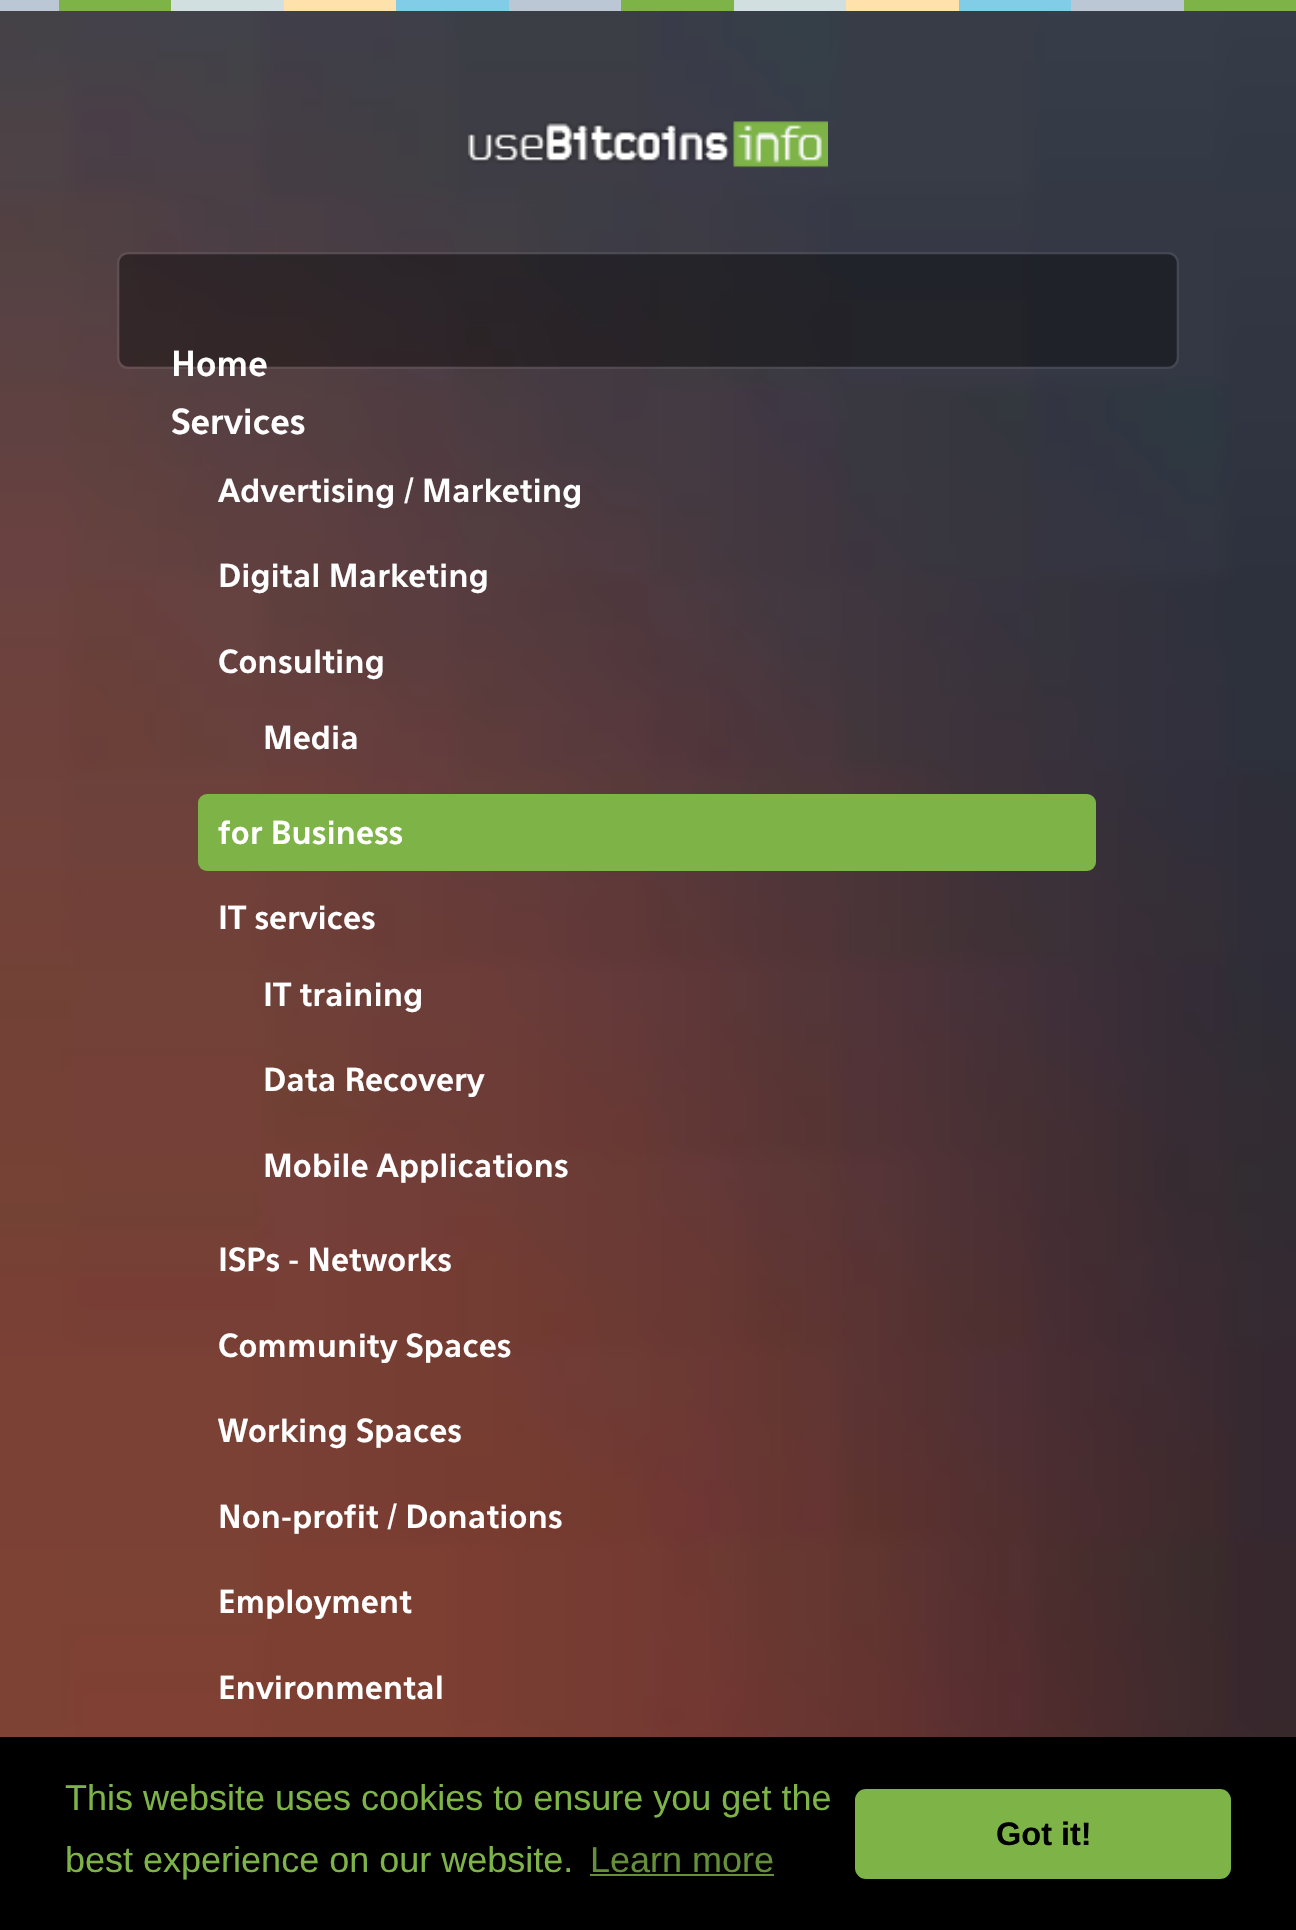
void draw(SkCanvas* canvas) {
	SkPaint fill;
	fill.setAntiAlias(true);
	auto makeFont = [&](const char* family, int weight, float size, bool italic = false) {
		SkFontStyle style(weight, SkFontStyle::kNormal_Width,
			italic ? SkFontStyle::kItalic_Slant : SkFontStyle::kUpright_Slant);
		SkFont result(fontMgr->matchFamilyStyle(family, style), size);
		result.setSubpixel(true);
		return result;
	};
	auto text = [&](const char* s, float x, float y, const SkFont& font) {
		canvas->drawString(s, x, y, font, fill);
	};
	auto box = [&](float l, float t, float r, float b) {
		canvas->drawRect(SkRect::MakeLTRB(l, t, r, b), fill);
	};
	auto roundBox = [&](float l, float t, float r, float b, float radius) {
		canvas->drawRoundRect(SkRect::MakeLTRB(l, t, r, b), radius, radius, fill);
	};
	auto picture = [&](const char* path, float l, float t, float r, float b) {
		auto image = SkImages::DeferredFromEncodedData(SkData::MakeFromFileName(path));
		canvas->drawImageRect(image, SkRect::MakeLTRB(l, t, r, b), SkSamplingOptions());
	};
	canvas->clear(0xFFFFFFFF);
	picture("image0.png", 0, 11, 1296, 1737);
	fill.setColor(0xFF7EB347);
	box(1184, 0, 1296, 11);
	fill.setColor(0xFFBCC7D6);
	box(1071, 0, 1184, 11);
	fill.setColor(0xFF81CDE7);
	box(959, 0, 1071, 11);
	fill.setColor(0xFFFFE2AB);
	box(846, 0, 959, 11);
	fill.setColor(0xFFD1DFE0);
	box(734, 0, 846, 11);
	fill.setColor(0xFF7EB347);
	box(621, 0, 734, 11);
	fill.setColor(0xFFBCC7D6);
	box(509, 0, 621, 11);
	fill.setColor(0xFF81CDE7);
	box(396, 0, 509, 11);
	fill.setColor(0xFFFFE2AB);
	box(284, 0, 396, 11);
	fill.setColor(0xFFD1DFE0);
	box(171, 0, 284, 11);
	fill.setColor(0xFF7EB347);
	box(59, 0, 171, 11);
	fill.setColor(0xFFBCC7D6);
	box(0, 0, 59, 11);
	picture("image1.png", 468, 121, 828, 168);
	fill.setStyle(SkPaint::kStroke_Style);
	fill.setStrokeWidth(2);
	fill.setColor(0x14FFFFFF);
	canvas->drawRoundRect(SkRect::MakeLTRB(118, 253, 1178, 368), 10, 10, fill);
	picture("image2.png", 119, 254, 1177, 367);
	fill.setStyle(SkPaint::kFill_Style);
	fill.setColor(0xFF7EB347);
	roundBox(198, 794, 1096, 871, 9);
	fill.setColor(0xFF000000);
	box(0, 1737, 1296, 1930);
	fill.setColor(0xFF658F39);
	box(590, 1874, 774, 1876);
	fill.setColor(0xFF7EB347);
	roundBox(855, 1789, 1231, 1879, 11);
	auto font1 = makeFont("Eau", 700, 34);
	fill.setColor(0xFFFFFFFF);
	text("Home", 171, 376, font1);
	text("Services", 171, 434, font1);
	auto font2 = makeFont("Eau", 700, 31.5f);
	text("Advertising / Marketing", 218, 502, font2);
	text("Digital Marketing", 218, 587, font2);
	text("Consulting", 218, 673, font2);
	text("Media", 263, 749, font2);
	text("for Business", 218, 844, font2);
	text("IT services", 218, 929, font2);
	text("IT training", 263, 1006, font2);
	text("Data Recovery", 263, 1091, font2);
	text("Mobile Applications", 263, 1177, font2);
	text("ISPs - Networks", 218, 1271, font2);
	text("Community Spaces", 218, 1357, font2);
	text("Working Spaces", 218, 1442, font2);
	text("Non-profit / Donations", 218, 1528, font2);
	text("Employment", 218, 1613, font2);
	text("Environmental", 218, 1699, font2);
	auto font3 = makeFont("Liberation Sans", 400, 36);
	fill.setColor(0xFF7EB347);
	text("This website uses cookies to ensure you get the", 65, 1810, font3);
	text("best experience on our website.", 65, 1872, font3);
	fill.setColor(0xFF658F39);
	text("Learn more", 590, 1872, font3);
	auto font4 = makeFont("Liberation Sans", 700, 32.5f);
	fill.setColor(0xFF000000);
	text("Got it!", 996, 1845, font4);
}
